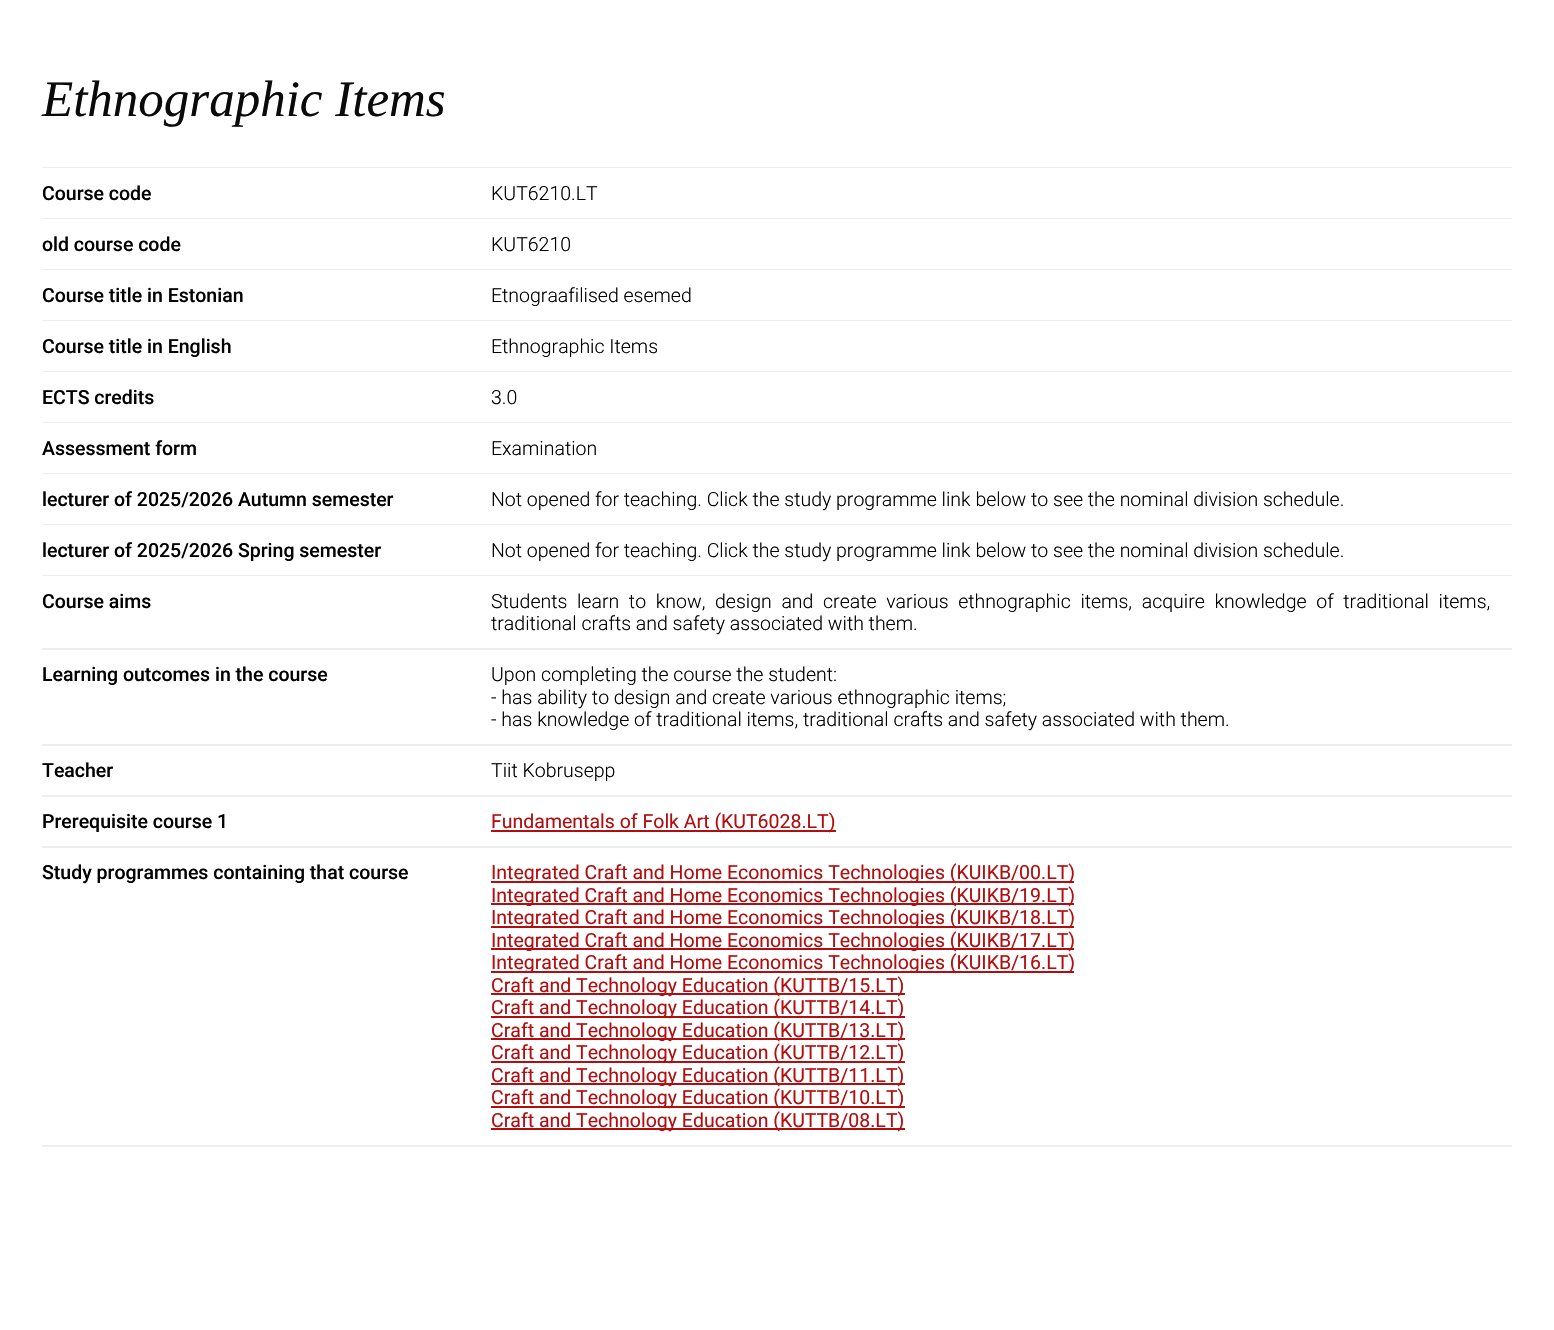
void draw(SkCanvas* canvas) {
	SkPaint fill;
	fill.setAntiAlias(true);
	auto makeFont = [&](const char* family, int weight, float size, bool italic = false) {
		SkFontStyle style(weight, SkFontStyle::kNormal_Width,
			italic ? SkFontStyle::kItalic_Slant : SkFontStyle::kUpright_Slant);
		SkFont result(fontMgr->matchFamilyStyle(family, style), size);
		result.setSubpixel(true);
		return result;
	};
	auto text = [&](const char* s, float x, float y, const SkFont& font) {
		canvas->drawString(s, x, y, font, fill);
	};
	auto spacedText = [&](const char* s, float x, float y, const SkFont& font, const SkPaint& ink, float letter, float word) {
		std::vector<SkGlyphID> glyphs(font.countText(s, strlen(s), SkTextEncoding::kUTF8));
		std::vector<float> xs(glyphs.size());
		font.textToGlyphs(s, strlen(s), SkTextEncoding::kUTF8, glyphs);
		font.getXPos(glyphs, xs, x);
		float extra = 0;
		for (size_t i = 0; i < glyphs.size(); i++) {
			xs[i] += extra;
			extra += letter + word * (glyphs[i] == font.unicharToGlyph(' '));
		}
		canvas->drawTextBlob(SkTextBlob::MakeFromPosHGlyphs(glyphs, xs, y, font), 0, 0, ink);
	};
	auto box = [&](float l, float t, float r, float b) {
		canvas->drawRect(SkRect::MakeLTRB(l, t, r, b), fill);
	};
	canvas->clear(0xFFFFFFFF);
	fill.setColor(0xFFEEEEEE);
	box(42, 167, 1512, 168);
	box(42, 218, 1512, 219);
	box(42, 269, 1512, 270);
	box(42, 320, 1512, 321);
	box(42, 371, 1512, 372);
	box(42, 422, 1512, 423);
	box(42, 473, 1512, 474);
	box(42, 524, 1512, 525);
	box(42, 575, 1512, 576);
	box(42, 648, 1512, 650);
	box(42, 744, 1512, 746);
	box(42, 795, 1512, 797);
	box(42, 846, 1512, 848);
	fill.setColor(0xFFB20E10);
	box(491, 830, 836, 832);
	fill.setColor(0xFFEEEEEE);
	box(42, 1145, 1512, 1147);
	fill.setColor(0xFFB20E10);
	box(491, 881, 1074, 883);
	box(491, 903, 1074, 905);
	box(491, 926, 1074, 928);
	box(491, 948, 1074, 950);
	box(491, 971, 1074, 973);
	box(491, 993, 905, 995);
	box(491, 1016, 905, 1018);
	box(491, 1038, 905, 1040);
	box(491, 1061, 905, 1063);
	box(491, 1083, 905, 1085);
	box(491, 1106, 905, 1108);
	box(491, 1128, 905, 1130);
	auto font1 = makeFont("Liberation Serif", 400, 51, true);
	fill.setColor(0xFF0A0A0A);
	text("Ethnographic Items", 42, 116, font1);
	auto font2 = makeFont("Roboto", 500, 19.5f);
	fill.setColor(0xFF000000);
	text("Course code", 42, 200, font2);
	auto font3 = makeFont("Roboto", 300, 19.5f);
	text("KUT6210.LT", 491, 200, font3);
	text("old course code", 42, 251, font2);
	text("KUT6210", 491, 251, font3);
	text("Course title in Estonian", 42, 302, font2);
	text("Etnograafilised esemed", 491, 302, font3);
	text("Course title in English", 42, 353, font2);
	text("Ethnographic Items", 491, 353, font3);
	text("ECTS credits", 42, 404, font2);
	text("3.0", 491, 404, font3);
	text("Assessment form", 42, 455, font2);
	text("Examination", 491, 455, font3);
	text("lecturer of 2025/2026 Autumn semester", 42, 506, font2);
	text("Not opened for teaching. Click the study programme link below to see the nominal division schedule.", 491, 506, font3);
	text("lecturer of 2025/2026 Spring semester", 42, 557, font2);
	text("Not opened for teaching. Click the study programme link below to see the nominal division schedule.", 491, 557, font3);
	text("Course aims", 42, 608, font2);
	spacedText("Students learn to know, design and create various ethnographic items, acquire knowledge of traditional items,", 491, 608, font3, fill, 0, 4.9f);
	text("traditional crafts and safety associated with them.", 491, 630, font3);
	text("Learning outcomes in the course", 42, 681, font2);
	text("Upon completing the course the student:", 491, 681, font3);
	text("- has ability to design and create various ethnographic items;", 491, 704, font3);
	text("- has knowledge of traditional items, traditional crafts and safety associated with them.", 491, 726, font3);
	text("Teacher", 42, 777, font2);
	text("Tiit Kobrusepp", 491, 777, font3);
	text("Prerequisite course 1", 42, 828, font2);
	auto font4 = makeFont("Roboto", 400, 19.5f);
	fill.setColor(0xFFB20E10);
	text("Fundamentals of Folk Art (KUT6028.LT)", 491, 828, font4);
	fill.setColor(0xFF000000);
	text("Study programmes containing that course", 42, 879, font2);
	fill.setColor(0xFFB20E10);
	text("Integrated Craft and Home Economics Technologies (KUIKB/00.LT)", 491, 879, font4);
	text("Integrated Craft and Home Economics Technologies (KUIKB/19.LT)", 491, 902, font4);
	text("Integrated Craft and Home Economics Technologies (KUIKB/18.LT)", 491, 924, font4);
	text("Integrated Craft and Home Economics Technologies (KUIKB/17.LT)", 491, 947, font4);
	text("Integrated Craft and Home Economics Technologies (KUIKB/16.LT)", 491, 969, font4);
	text("Craft and Technology Education (KUTTB/15.LT)", 491, 992, font4);
	text("Craft and Technology Education (KUTTB/14.LT)", 491, 1014, font4);
	text("Craft and Technology Education (KUTTB/13.LT)", 491, 1037, font4);
	text("Craft and Technology Education (KUTTB/12.LT)", 491, 1059, font4);
	text("Craft and Technology Education (KUTTB/11.LT)", 491, 1082, font4);
	text("Craft and Technology Education (KUTTB/10.LT)", 491, 1104, font4);
	text("Craft and Technology Education (KUTTB/08.LT)", 491, 1127, font4);
}
